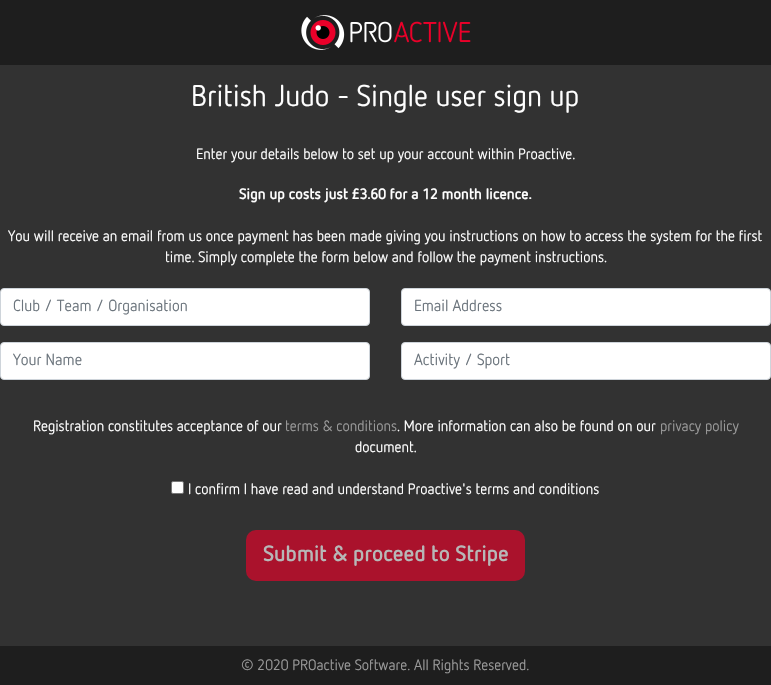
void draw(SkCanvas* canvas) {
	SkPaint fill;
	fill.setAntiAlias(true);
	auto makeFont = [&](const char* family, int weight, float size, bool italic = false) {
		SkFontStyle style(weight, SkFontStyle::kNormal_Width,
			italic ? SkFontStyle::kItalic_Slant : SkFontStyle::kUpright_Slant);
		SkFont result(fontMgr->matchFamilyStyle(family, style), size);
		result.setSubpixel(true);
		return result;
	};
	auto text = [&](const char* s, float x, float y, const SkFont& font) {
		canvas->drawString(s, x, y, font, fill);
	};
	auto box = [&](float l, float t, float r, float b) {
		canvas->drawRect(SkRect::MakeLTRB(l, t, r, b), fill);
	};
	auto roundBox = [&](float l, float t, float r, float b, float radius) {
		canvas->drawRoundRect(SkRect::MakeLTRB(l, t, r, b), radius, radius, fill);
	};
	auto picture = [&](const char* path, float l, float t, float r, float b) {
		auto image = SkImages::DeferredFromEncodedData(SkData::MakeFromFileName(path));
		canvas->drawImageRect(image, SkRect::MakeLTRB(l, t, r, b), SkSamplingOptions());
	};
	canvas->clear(0xFF323232);
	fill.setColor(0xFF1E1E1E);
	box(0, 0, 771, 65);
	picture("image0.png", 301, 15, 471, 50);
	fill.setColor(0xFFFFFFFF);
	canvas->drawRoundRect(SkRect::MakeLTRB(0.5f, 288.5f, 369.5f, 325.5f), 3.5f, 3.5f, fill);
	fill.setStyle(SkPaint::kStroke_Style);
	fill.setStrokeWidth(1);
	fill.setColor(0xFFCED4DA);
	canvas->drawRoundRect(SkRect::MakeLTRB(0.5f, 288.5f, 369.5f, 325.5f), 3.5f, 3.5f, fill);
	fill.setStyle(SkPaint::kFill_Style);
	fill.setColor(0xFFFFFFFF);
	canvas->drawRoundRect(SkRect::MakeLTRB(0.5f, 342.5f, 369.5f, 379.5f), 3.5f, 3.5f, fill);
	fill.setStyle(SkPaint::kStroke_Style);
	fill.setColor(0xFFCED4DA);
	canvas->drawRoundRect(SkRect::MakeLTRB(0.5f, 342.5f, 369.5f, 379.5f), 3.5f, 3.5f, fill);
	fill.setStyle(SkPaint::kFill_Style);
	fill.setColor(0xFFFFFFFF);
	canvas->drawRoundRect(SkRect::MakeLTRB(401.5f, 288.5f, 770.5f, 325.5f), 3.5f, 3.5f, fill);
	fill.setStyle(SkPaint::kStroke_Style);
	fill.setColor(0xFFCED4DA);
	canvas->drawRoundRect(SkRect::MakeLTRB(401.5f, 288.5f, 770.5f, 325.5f), 3.5f, 3.5f, fill);
	fill.setStyle(SkPaint::kFill_Style);
	fill.setColor(0xFFFFFFFF);
	canvas->drawRoundRect(SkRect::MakeLTRB(401.5f, 342.5f, 770.5f, 379.5f), 3.5f, 3.5f, fill);
	fill.setStyle(SkPaint::kStroke_Style);
	fill.setColor(0xFFCED4DA);
	canvas->drawRoundRect(SkRect::MakeLTRB(401.5f, 342.5f, 770.5f, 379.5f), 3.5f, 3.5f, fill);
	fill.setStyle(SkPaint::kFill_Style);
	fill.setColor(0xFFFFFFFF);
	canvas->drawRoundRect(SkRect::MakeLTRB(171.5f, 481.5f, 183.5f, 493.5f), 1.5f, 1.5f, fill);
	fill.setStyle(SkPaint::kStroke_Style);
	fill.setColor(0xFF767676);
	canvas->drawRoundRect(SkRect::MakeLTRB(171.5f, 481.5f, 183.5f, 493.5f), 1.5f, 1.5f, fill);
	fill.setStyle(SkPaint::kFill_Style);
	fill.setColor(0xFFAA122C);
	roundBox(246, 530, 525, 581, 10);
	fill.setColor(0xFF1E1E1E);
	box(0, 646, 771, 685);
	auto font1 = makeFont("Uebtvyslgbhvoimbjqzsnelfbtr", 400, 30);
	fill.setColor(0xFFFFFFFF);
	text("British Judo - Single user sign up", 191, 106, font1);
	auto font2 = makeFont("Uebtvyslgbhvoimbjqzsnelfbtr", 400, 15);
	text("Enter your details below to set up your account within Proactive.", 196, 159, font2);
	auto font3 = makeFont("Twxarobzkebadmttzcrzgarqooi", 700, 15);
	text("Sign up costs just £3.60 for a 12 month licence.", 239, 199, font3);
	text("You will receive an email from us once payment has been made giving you instructions on how to access the system for the first", 8, 241, font2);
	text("time. Simply complete the form below and follow the payment instructions.", 165, 262, font2);
	auto font4 = makeFont("Uebtvyslgbhvoimbjqzsnelfbtr", 400, 16);
	fill.setColor(0xFF6C757D);
	text("Club / Team / Organisation", 13, 311, font4);
	text("Your Name", 13, 365, font4);
	text("Email Address", 414, 311, font4);
	text("Activity / Sport", 414, 365, font4);
	fill.setColor(0xFFFFFFFF);
	text("Registration constitutes acceptance of our", 33, 431, font2);
	fill.setColor(0xFF999999);
	text("terms & conditions", 285, 431, font2);
	fill.setColor(0xFFFFFFFF);
	text(". More information can also be found on our", 397, 431, font2);
	fill.setColor(0xFF999999);
	text("privacy policy", 660, 431, font2);
	fill.setColor(0xFFFFFFFF);
	text("document.", 355, 452, font2);
	text("I confirm I have read and understand Proactive's terms and conditions", 188, 494, font2);
	auto font5 = makeFont("Twxarobzkebadmttzcrzgarqooi", 700, 22);
	fill.setColor(0xFFB7B7B7);
	text("Submit & proceed to Stripe", 263, 561, font5);
	fill.setColor(0xFF999999);
	text("© 2020 PROactive Software. All Rights Reserved.", 241, 670, font2);
}
